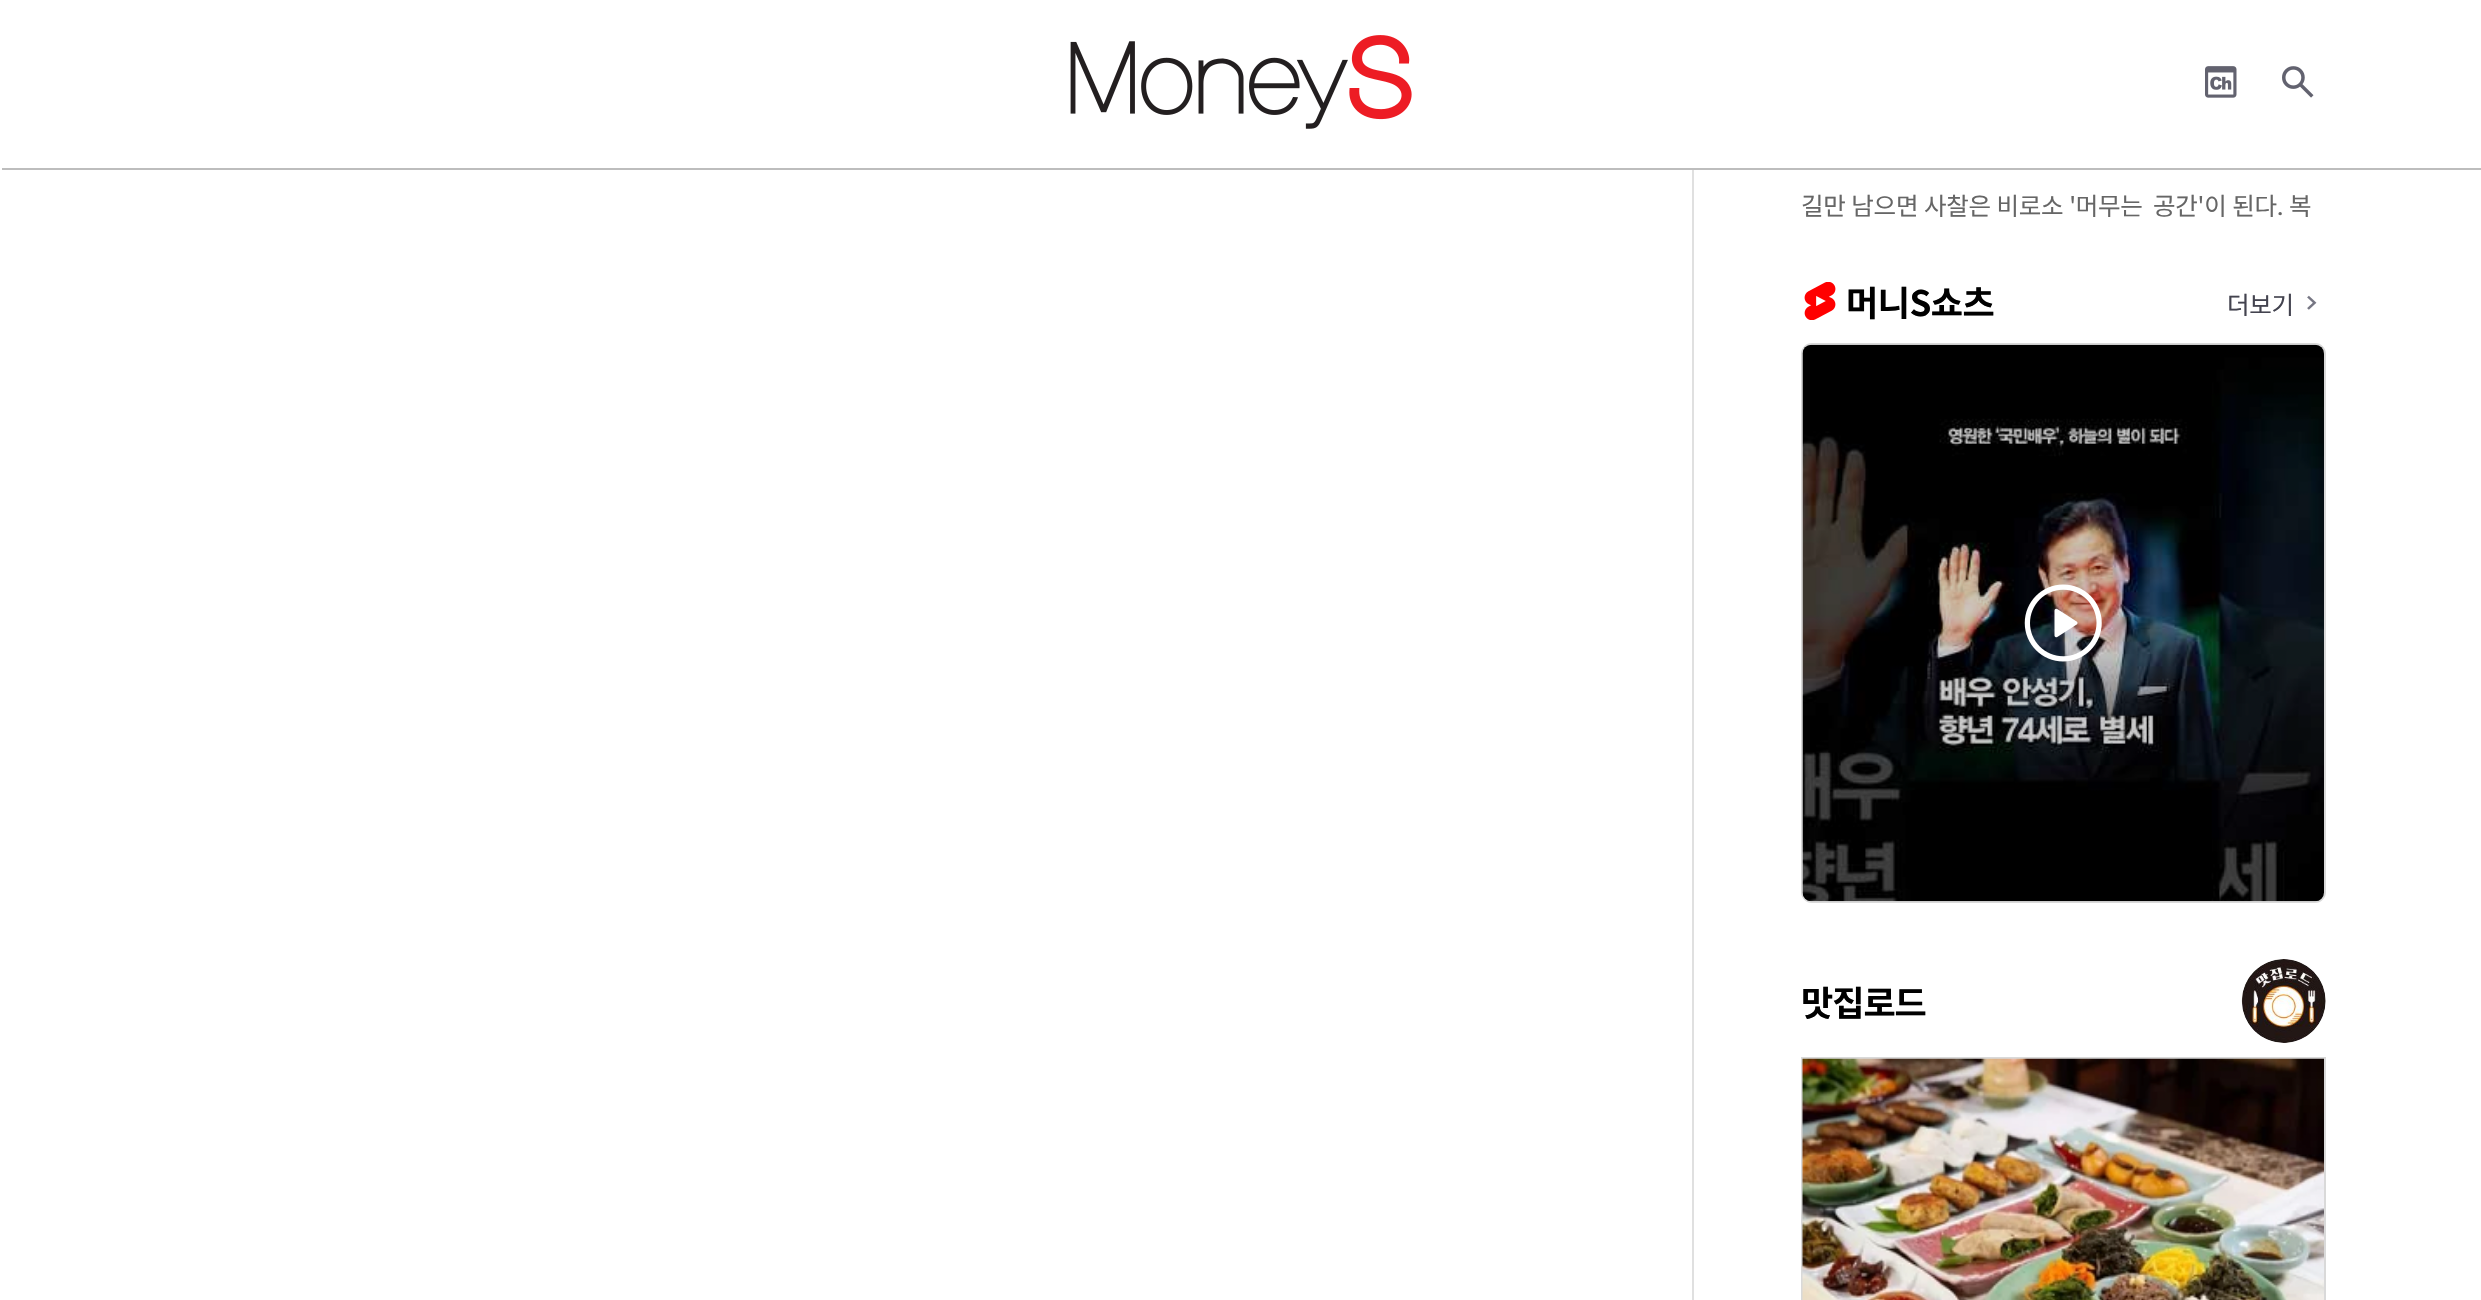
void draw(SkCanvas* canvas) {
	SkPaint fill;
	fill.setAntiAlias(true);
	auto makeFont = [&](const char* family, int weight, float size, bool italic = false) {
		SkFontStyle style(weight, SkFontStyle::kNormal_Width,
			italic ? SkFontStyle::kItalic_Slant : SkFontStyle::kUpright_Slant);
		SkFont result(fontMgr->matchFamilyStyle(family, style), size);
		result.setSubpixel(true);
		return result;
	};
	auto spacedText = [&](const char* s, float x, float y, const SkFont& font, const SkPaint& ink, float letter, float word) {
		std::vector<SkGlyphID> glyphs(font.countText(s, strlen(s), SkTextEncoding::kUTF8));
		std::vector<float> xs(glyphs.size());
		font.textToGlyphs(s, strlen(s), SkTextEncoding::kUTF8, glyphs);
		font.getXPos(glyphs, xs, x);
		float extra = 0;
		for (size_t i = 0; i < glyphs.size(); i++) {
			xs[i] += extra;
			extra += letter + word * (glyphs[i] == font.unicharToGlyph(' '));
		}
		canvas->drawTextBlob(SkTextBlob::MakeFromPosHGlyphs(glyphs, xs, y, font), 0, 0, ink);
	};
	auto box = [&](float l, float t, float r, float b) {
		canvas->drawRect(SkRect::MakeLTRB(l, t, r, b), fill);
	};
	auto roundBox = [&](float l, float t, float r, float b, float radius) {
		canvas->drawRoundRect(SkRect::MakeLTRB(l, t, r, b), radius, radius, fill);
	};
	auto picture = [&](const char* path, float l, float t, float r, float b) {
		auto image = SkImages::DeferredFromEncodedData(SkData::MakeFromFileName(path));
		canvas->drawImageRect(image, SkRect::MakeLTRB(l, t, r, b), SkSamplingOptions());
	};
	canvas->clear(0xFFFFFFFF);
	fill.setColor(0xFFBDBDBD);
	box(0, 168, 2481, 170);
	fill.setColor(0xFFFFFFFF);
	box(0, 168, 2, 170);
	picture("image0.png", 1070, 35, 1412, 129);
	picture("image1.png", 2205, 66, 2237, 98);
	picture("image2.png", 2282, 66, 2314, 98);
	fill.setColor(0xFFE0E0E0);
	box(1692, 170, 1694, 1300);
	picture("image3.png", 1804, 282, 1836, 320);
	picture("image4.png", 2307, 295, 2317, 310);
	fill.setStyle(SkPaint::kStroke_Style);
	fill.setStrokeWidth(2);
	fill.setColor(0xFFD9D9D9);
	canvas->drawRoundRect(SkRect::MakeLTRB(1802, 344, 2325, 902), 10, 10, fill);
	picture("image5.png", 1802, 344, 2324, 902);
	fill.setStyle(SkPaint::kFill_Style);
	fill.setColor(0x33000000);
	roundBox(1803, 345, 2324, 901, 9);
	picture("image6.png", 2024, 584, 2102, 662);
	picture("image7.png", 2241, 959, 2326, 1043);
	fill.setStyle(SkPaint::kStroke_Style);
	fill.setColor(0xFFD9D9D9);
	canvas->drawRect(SkRect::MakeLTRB(1802, 1058, 2325, 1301), fill);
	picture("image8.png", 1802, 1058, 2324, 1300);
	auto font1 = makeFont("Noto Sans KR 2", 100, 24.5f);
	fill.setStyle(SkPaint::kFill_Style);
	fill.setColor(0xFF666666);
	spacedText("길만 남으면 사찰은 비로소 '머무는", 1801, 215, font1, fill, -0.25f, 0.5f);
	spacedText("공간'이 된다. 복", 2153, 215, font1, fill, -0.25f, 0.5f);
	auto font2 = makeFont("Noto Sans KR", 100, 35);
	fill.setColor(0xFF000000);
	spacedText("머니S쇼츠", 1846, 316, font2, fill, -0.5f, 0);
	fill.setColor(0xFF43434F);
	spacedText("더보기", 2227, 314, font1, fill, -0.25f, 0);
	fill.setColor(0xFF000000);
	spacedText("맛집로드", 1801, 1016, font2, fill, -1, 0);
}
